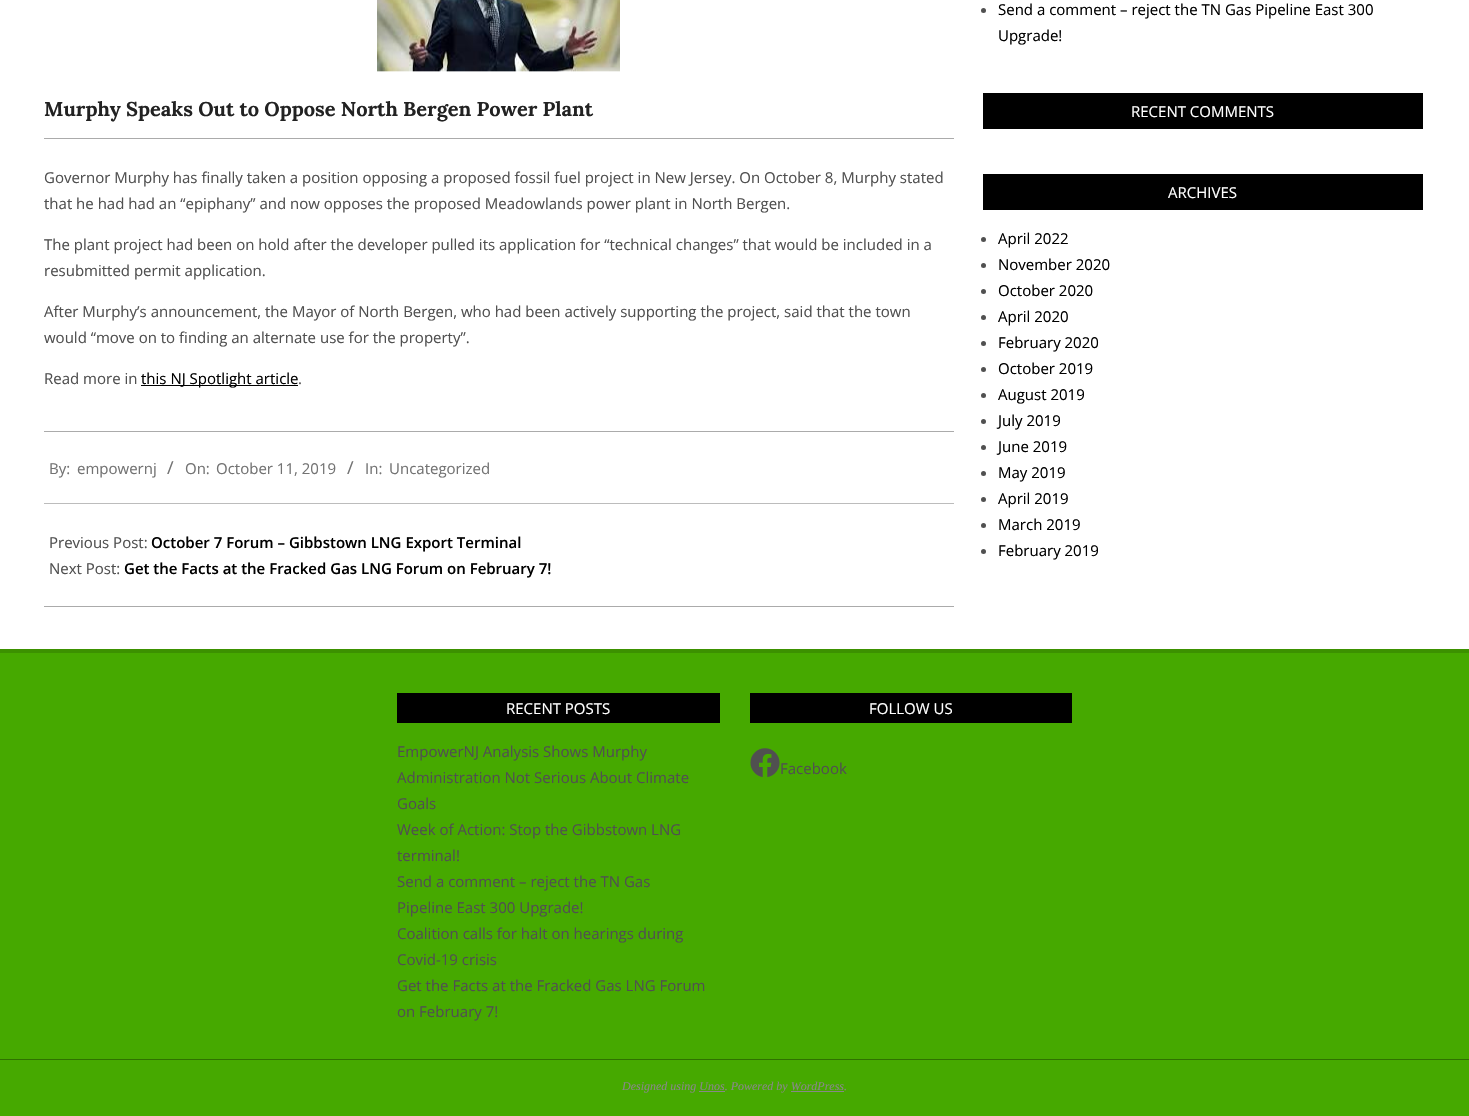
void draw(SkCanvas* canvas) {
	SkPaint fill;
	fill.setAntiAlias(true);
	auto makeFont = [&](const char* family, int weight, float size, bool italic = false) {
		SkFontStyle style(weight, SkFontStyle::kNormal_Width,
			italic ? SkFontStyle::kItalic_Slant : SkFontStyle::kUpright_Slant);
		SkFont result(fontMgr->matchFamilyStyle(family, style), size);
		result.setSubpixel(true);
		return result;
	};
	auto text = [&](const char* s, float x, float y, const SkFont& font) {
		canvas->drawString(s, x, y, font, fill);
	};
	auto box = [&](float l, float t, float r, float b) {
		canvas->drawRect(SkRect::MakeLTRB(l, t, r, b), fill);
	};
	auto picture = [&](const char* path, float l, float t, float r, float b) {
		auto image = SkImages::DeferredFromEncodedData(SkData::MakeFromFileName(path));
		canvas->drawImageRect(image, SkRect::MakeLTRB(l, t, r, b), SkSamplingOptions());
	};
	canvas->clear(0xFF46A900);
	fill.setColor(0xFFFFFFFF);
	box(0, 0, 1469, 649);
	picture("image0.png", 377, 0, 620, 72);
	fill.setColor(0xFFABABAB);
	box(44, 138, 954, 139);
	box(44, 431, 954, 432);
	fill.setColor(0xFF000000);
	box(141, 385, 298, 386);
	fill.setColor(0xFFBCBCBC);
	box(44, 503, 954, 504);
	fill.setColor(0xFFABABAB);
	box(44, 606, 954, 607);
	fill.setColor(0xFF505050);
	canvas->drawCircle(983.5f, 10.5f, 2.5f, fill);
	fill.setColor(0xFF000000);
	box(983, 93, 1423, 129);
	box(983, 174, 1423, 210);
	fill.setColor(0xFF505050);
	canvas->drawCircle(983.5f, 239.5f, 2.5f, fill);
	canvas->drawCircle(983.5f, 265.5f, 2.5f, fill);
	canvas->drawCircle(983.5f, 291.5f, 2.5f, fill);
	canvas->drawCircle(983.5f, 317.5f, 2.5f, fill);
	canvas->drawCircle(983.5f, 343.5f, 2.5f, fill);
	canvas->drawCircle(983.5f, 369.5f, 2.5f, fill);
	canvas->drawCircle(983.5f, 395.5f, 2.5f, fill);
	canvas->drawCircle(983.5f, 421.5f, 2.5f, fill);
	canvas->drawCircle(983.5f, 447.5f, 2.5f, fill);
	canvas->drawCircle(983.5f, 473.5f, 2.5f, fill);
	canvas->drawCircle(983.5f, 499.5f, 2.5f, fill);
	canvas->drawCircle(983.5f, 525.5f, 2.5f, fill);
	canvas->drawCircle(983.5f, 551.5f, 2.5f, fill);
	fill.setColor(0xFF3C9100);
	box(0, 649, 1469, 653);
	fill.setColor(0xFF000000);
	box(397, 693, 720, 723);
	box(750, 693, 1072, 723);
	picture("image1.png", 750, 748, 780, 777);
	fill.setColor(0xFF2F7100);
	box(0, 1059, 1469, 1060);
	fill.setColor(0xFF888888);
	box(699, 1091, 725, 1092);
	box(791, 1091, 844, 1092);
	auto font1 = makeFont("Lora", 700, 20);
	fill.setColor(0xFF222222);
	text("Murphy Speaks Out to Oppose North Bergen Power Plant", 44, 116, font1);
	auto font2 = makeFont("Open Sans", 400, 15);
	fill.setColor(0xFF505050);
	text("Governor Murphy has finally taken a position opposing a proposed fossil fuel project in New Jersey. On October 8, Murphy stated", 44, 183, font2);
	text("that he had had an “epiphany” and now opposes the proposed Meadowlands power plant in North Bergen.", 44, 209, font2);
	text("The plant project had been on hold after the developer pulled its application for “technical changes” that would be included in a", 44, 250, font2);
	text("resubmitted permit application.", 44, 276, font2);
	text("After Murphy’s announcement, the Mayor of North Bergen, who had been actively supporting the project, said that the town", 44, 317, font2);
	text("would “move on to finding an alternate use for the property”.", 44, 343, font2);
	text("Read more in", 44, 384, font2);
	fill.setColor(0xFF000000);
	text("this NJ Spotlight article", 141, 384, font2);
	fill.setColor(0xFF505050);
	text(".", 298, 384, font2);
	fill.setColor(0xFF737373);
	text("By:", 49, 474, font2);
	text("empowernj", 77, 474, font2);
	auto font3 = makeFont("Open Sans", 400, 18);
	text("/", 167, 474, font3);
	text("On:", 185, 474, font2);
	text("October 11, 2019", 216, 474, font2);
	text("/", 347, 474, font3);
	text("In:", 365, 474, font2);
	text("Uncategorized", 389, 474, font2);
	fill.setColor(0xFF505050);
	text("Previous Post:", 49, 548, font2);
	auto font4 = makeFont("Open Sans", 600, 15);
	fill.setColor(0xFF000000);
	text("October 7 Forum – Gibbstown LNG Export Terminal", 151, 548, font4);
	fill.setColor(0xFF505050);
	text("Next Post:", 49, 574, font2);
	fill.setColor(0xFF000000);
	text("Get the Facts at the Fracked Gas LNG Forum on February 7!", 124, 574, font4);
	text("Send a comment – reject the TN Gas Pipeline East 300", 998, 15, font2);
	text("Upgrade!", 998, 41, font2);
	fill.setColor(0xFFFFFFFF);
	text("RECENT COMMENTS", 1131, 117, font2);
	text("ARCHIVES", 1168, 198, font2);
	fill.setColor(0xFF000000);
	text("April 2022", 998, 244, font2);
	text("November 2020", 998, 270, font2);
	text("October 2020", 998, 296, font2);
	text("April 2020", 998, 322, font2);
	text("February 2020", 998, 348, font2);
	text("October 2019", 998, 374, font2);
	text("August 2019", 998, 400, font2);
	text("July 2019", 998, 426, font2);
	text("June 2019", 998, 452, font2);
	text("May 2019", 998, 478, font2);
	text("April 2019", 998, 504, font2);
	text("March 2019", 998, 530, font2);
	text("February 2019", 998, 556, font2);
	fill.setColor(0xFFFFFFFF);
	text("RECENT POSTS", 506, 714, font2);
	fill.setColor(0xFF505050);
	text("EmpowerNJ Analysis Shows Murphy", 397, 757, font2);
	text("Administration Not Serious About Climate", 397, 783, font2);
	text("Goals", 397, 809, font2);
	text("Week of Action: Stop the Gibbstown LNG", 397, 835, font2);
	text("terminal!", 397, 861, font2);
	text("Send a comment – reject the TN Gas", 397, 887, font2);
	text("Pipeline East 300 Upgrade!", 397, 913, font2);
	text("Coalition calls for halt on hearings during", 397, 939, font2);
	text("Covid-19 crisis", 397, 965, font2);
	text("Get the Facts at the Fracked Gas LNG Forum", 397, 991, font2);
	text("on February 7!", 397, 1017, font2);
	fill.setColor(0xFFFFFFFF);
	text("FOLLOW US", 869, 714, font2);
	fill.setColor(0xFF505050);
	text("Facebook", 780, 774, font2);
	auto font5 = makeFont("Liberation Serif", 400, 12, true);
	fill.setColor(0xFF888888);
	text("Designed using Unos. Powered by WordPress.", 622, 1090, font5);
}
